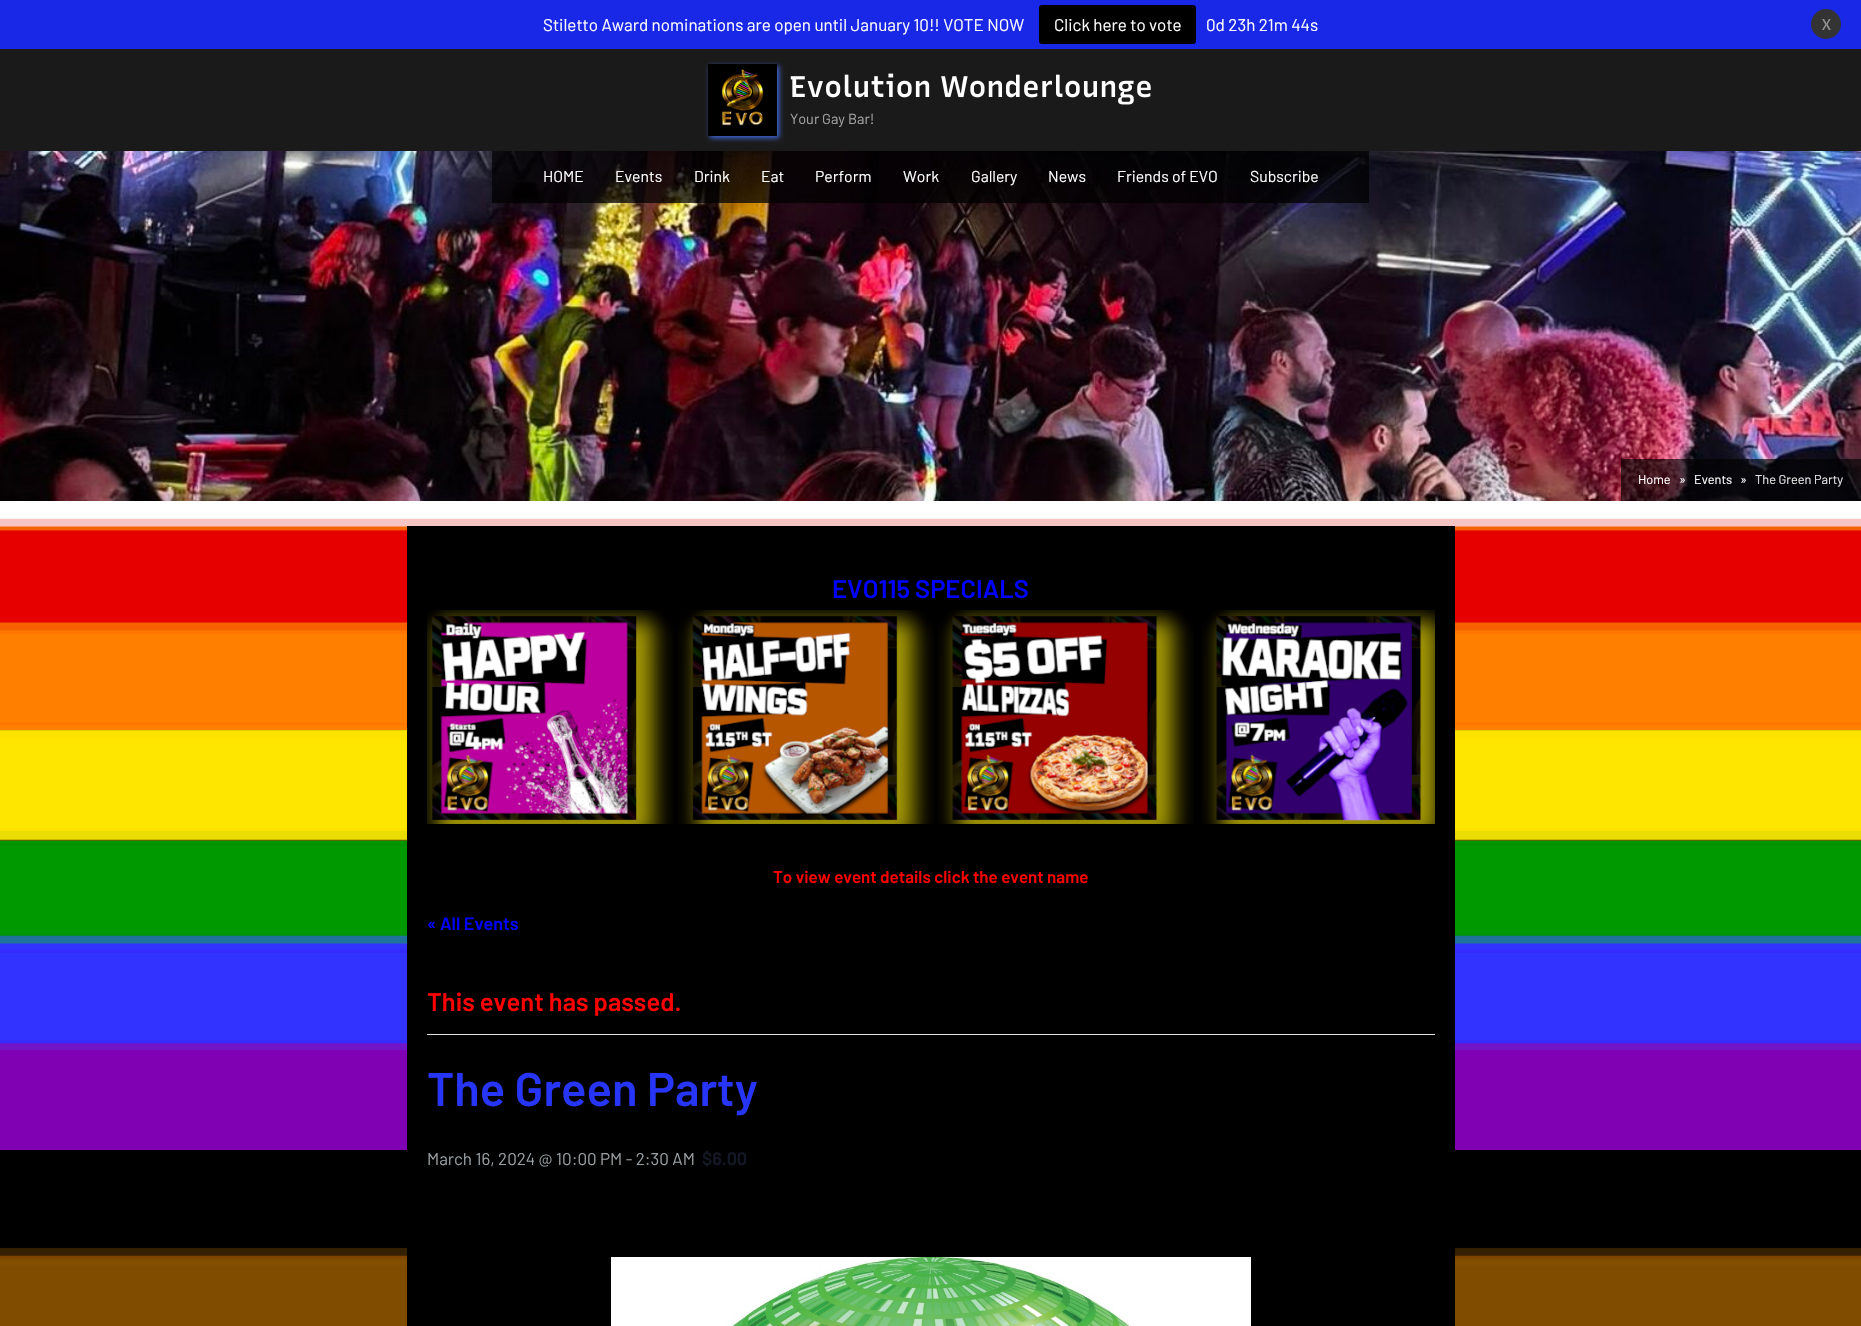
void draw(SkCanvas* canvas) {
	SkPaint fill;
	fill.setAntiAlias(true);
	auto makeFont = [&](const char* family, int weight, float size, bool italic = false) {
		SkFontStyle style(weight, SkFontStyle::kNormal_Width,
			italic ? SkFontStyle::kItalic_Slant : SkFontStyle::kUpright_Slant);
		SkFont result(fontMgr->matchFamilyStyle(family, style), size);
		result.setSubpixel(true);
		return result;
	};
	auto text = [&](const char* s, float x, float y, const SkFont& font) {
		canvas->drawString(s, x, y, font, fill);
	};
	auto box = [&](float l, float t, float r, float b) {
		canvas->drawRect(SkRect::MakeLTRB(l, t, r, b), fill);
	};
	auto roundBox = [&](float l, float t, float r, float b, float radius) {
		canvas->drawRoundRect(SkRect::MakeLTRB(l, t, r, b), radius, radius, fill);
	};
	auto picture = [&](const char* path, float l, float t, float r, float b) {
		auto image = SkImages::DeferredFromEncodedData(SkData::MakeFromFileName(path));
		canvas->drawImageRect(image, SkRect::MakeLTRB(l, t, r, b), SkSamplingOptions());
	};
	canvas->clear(0xFFFFFFFF);
	picture("image0.png", 0, 501, 1861, 1326);
	fill.setColor(0xFF1927E6);
	box(0, 0, 1861, 49);
	fill.setColor(0xFF000000);
	roundBox(1039, 5, 1196, 44, 3);
	fill.setColor(0xFF333333);
	canvas->drawCircle(1826, 24, 15, fill);
	fill.setColor(0xFF1A1A1A);
	box(0, 49, 1861, 151);
	fill.setColor(0xFF4169E1);
	fill.setMaskFilter(SkMaskFilter::MakeBlur(kNormal_SkBlurStyle, 2.5f));
	canvas->drawRect(SkRect::MakeLTRB(710, 66, 779, 138), fill);
	fill.setMaskFilter(nullptr);
	picture("image1.png", 708, 64, 777, 136);
	picture("image2.png", 790, 73, 1151, 105);
	picture("image3.png", 0, 151, 1861, 501);
	fill.setColor(0xBF000000);
	box(492, 151, 1369, 203);
	fill.setColor(0xA6000000);
	box(1621, 459, 1861, 501);
	fill.setColor(0xFF000000);
	box(407, 526, 1455, 1326);
	picture("image4.png", 427, 610, 1435, 824);
	fill.setColor(0xFFE4E4E4);
	box(427, 1034, 1435, 1035);
	picture("image5.png", 611, 1257, 1251, 1326);
	auto font1 = makeFont("Barlow", 400, 17);
	fill.setColor(0xFFFFFFFF);
	text("Stiletto Award nominations are open until January 10!! VOTE NOW", 543, 31, font1);
	text("Click here to vote", 1054, 31, font1);
	text("0d 23h 21m 44s", 1206, 31, font1);
	auto font2 = makeFont("Carlito", 400, 17);
	fill.setColor(0xFF949494);
	text("X", 1822, 30, font2);
	auto font3 = makeFont("Barlow", 400, 14.5f);
	fill.setColor(0xFFA3A3A3);
	text("Your Gay Bar!", 790, 124, font3);
	auto font4 = makeFont("Barlow", 400, 15.75f);
	fill.setColor(0xFFFFFFFF);
	text("HOME", 543, 182, font4);
	text("Events", 615, 182, font4);
	text("Drink", 694, 182, font4);
	text("Eat", 761, 182, font4);
	text("Perform", 815, 182, font4);
	text("Work", 903, 182, font4);
	text("Gallery", 971, 182, font4);
	text("News", 1048, 182, font4);
	text("Friends of EVO", 1117, 182, font4);
	text("Subscribe", 1250, 182, font4);
	auto font5 = makeFont("Barlow", 400, 12.75f);
	text("Home", 1638, 484, font5);
	text("»", 1679, 484, font5);
	text("Events", 1694, 484, font5);
	text("»", 1740, 484, font5);
	fill.setColor(0xFFE7E5E5);
	text("The Green Party", 1755, 484, font5);
	auto font6 = makeFont("Barlow", 600, 25.5f);
	fill.setColor(0xFF0000FF);
	text("EVO115 SPECIALS", 832, 598, font6);
	auto font7 = makeFont("Barlow", 600, 17);
	fill.setColor(0xFFFF0000);
	text("To view event details click the event name", 773, 883, font7);
	auto font8 = makeFont("Barlow", 600, 18);
	fill.setColor(0xFF0000FF);
	text("« All Events", 427, 930, font8);
	fill.setColor(0xFFFF0000);
	text("This event has passed.", 427, 1011, font6);
	auto font9 = makeFont("Barlow", 600, 47);
	fill.setColor(0xFF2735F9);
	text("The Green Party", 427, 1106, font9);
	fill.setColor(0xFF999FA3);
	text("March 16, 2024 @ 10:00 PM - 2:30 AM", 427, 1165, font1);
	fill.setColor(0xFF141827);
	text("$6.00", 702, 1165, font8);
}
